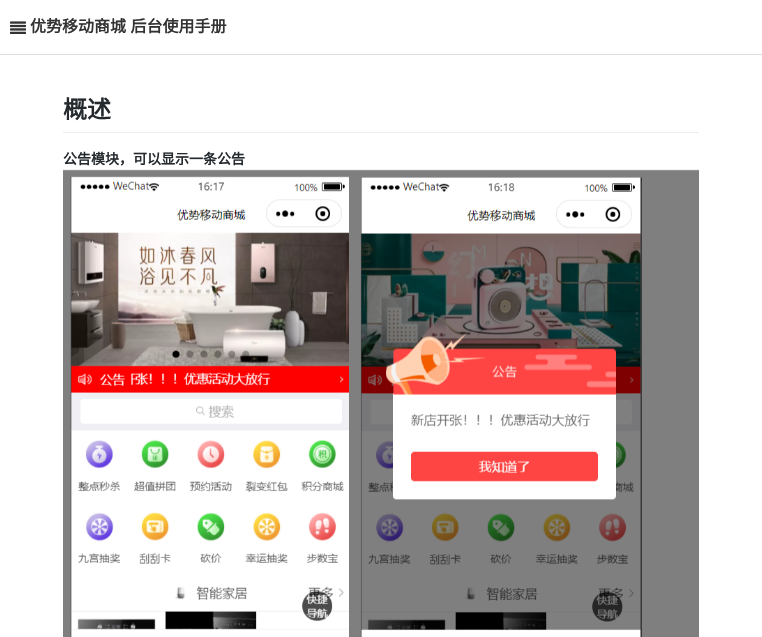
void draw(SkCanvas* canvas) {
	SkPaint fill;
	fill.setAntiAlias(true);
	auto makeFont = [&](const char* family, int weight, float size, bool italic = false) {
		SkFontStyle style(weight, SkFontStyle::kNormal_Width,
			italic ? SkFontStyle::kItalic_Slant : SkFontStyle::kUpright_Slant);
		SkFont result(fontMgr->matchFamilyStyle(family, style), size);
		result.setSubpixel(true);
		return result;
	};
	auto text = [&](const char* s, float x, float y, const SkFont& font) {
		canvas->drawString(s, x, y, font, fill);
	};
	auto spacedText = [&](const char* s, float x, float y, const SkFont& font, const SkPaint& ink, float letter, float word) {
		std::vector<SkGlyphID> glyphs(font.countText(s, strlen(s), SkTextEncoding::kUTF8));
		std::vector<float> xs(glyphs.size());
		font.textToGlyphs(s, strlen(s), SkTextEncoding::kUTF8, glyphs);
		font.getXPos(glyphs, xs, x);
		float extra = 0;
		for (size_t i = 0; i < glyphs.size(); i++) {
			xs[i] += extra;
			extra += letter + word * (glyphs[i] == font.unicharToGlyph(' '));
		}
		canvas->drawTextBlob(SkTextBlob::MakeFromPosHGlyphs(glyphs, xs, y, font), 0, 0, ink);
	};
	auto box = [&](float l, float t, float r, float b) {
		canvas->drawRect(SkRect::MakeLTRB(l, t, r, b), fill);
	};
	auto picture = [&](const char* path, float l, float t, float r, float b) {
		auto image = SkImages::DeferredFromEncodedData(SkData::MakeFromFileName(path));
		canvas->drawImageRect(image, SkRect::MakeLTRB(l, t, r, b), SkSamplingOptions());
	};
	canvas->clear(0xFFFFFFFF);
	picture("image0.png", 10, 21, 26, 34);
	fill.setColor(0xFFDDDDDD);
	box(0, 54, 762, 55);
	fill.setColor(0xFFEEEEEE);
	box(63, 132, 699, 133);
	picture("image1.png", 63, 169, 699, 637);
	auto font1 = makeFont("Noto Sans CJK SC", 700, 16);
	fill.setColor(0xFF333333);
	spacedText("优势移动商城 后台使用手册", 30, 32, font1, fill, 0, 1);
	auto font2 = makeFont("Noto Sans CJK SC", 700, 24);
	fill.setColor(0xFF24292E);
	text("概述", 63, 118, font2);
	auto font3 = makeFont("Noto Sans CJK SC", 700, 14);
	text("公告模块，可以显示一条公告", 63, 164, font3);
}
